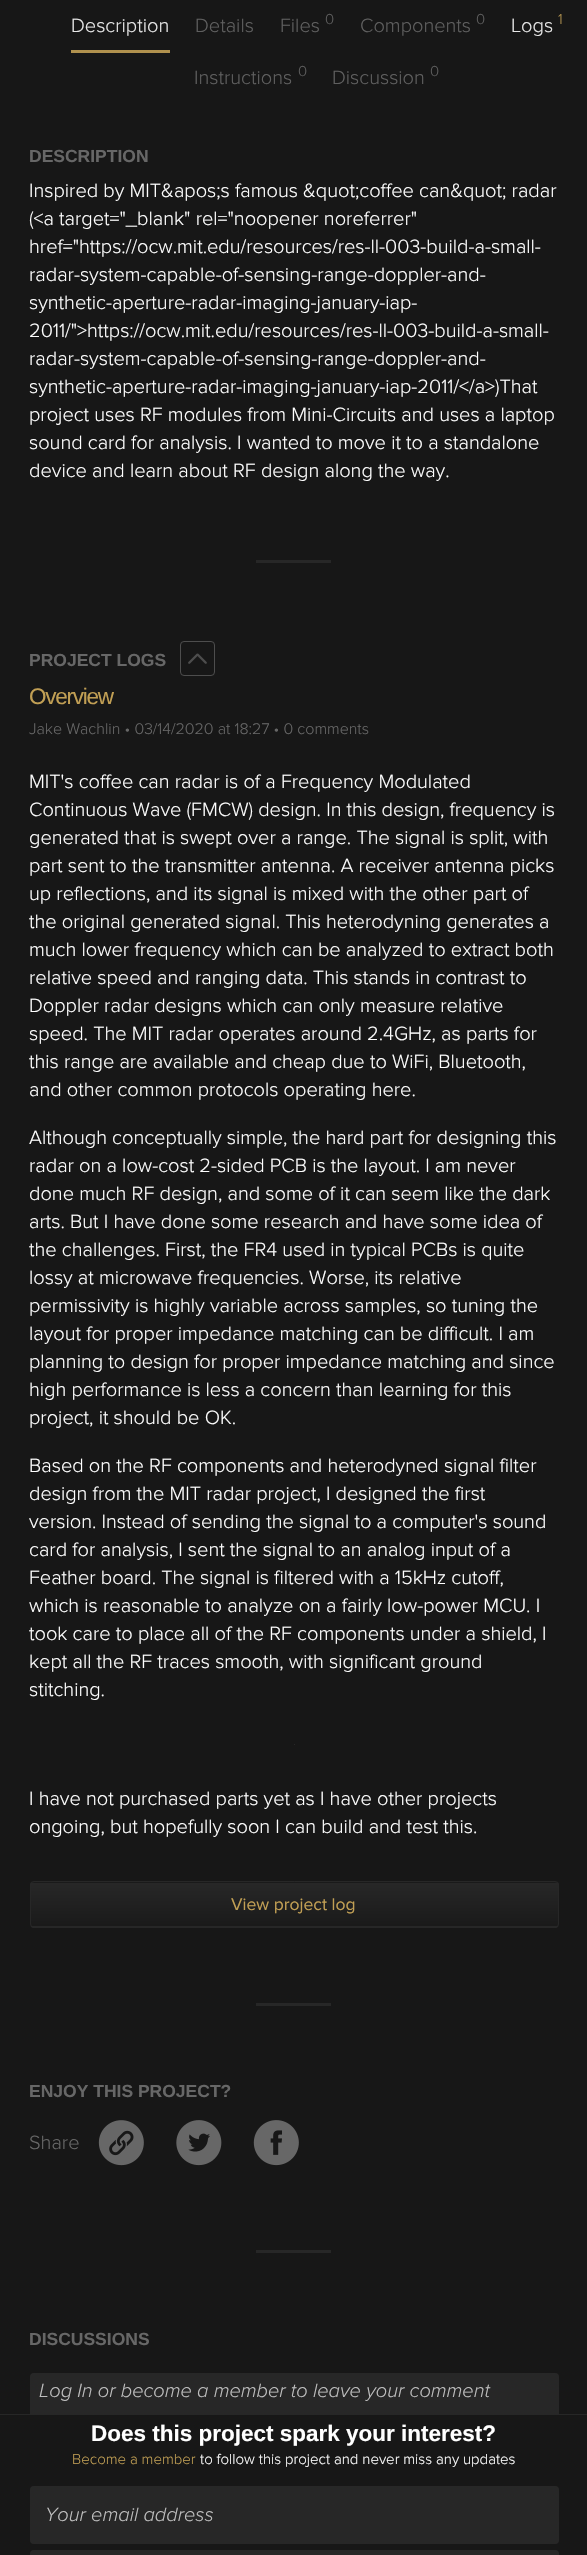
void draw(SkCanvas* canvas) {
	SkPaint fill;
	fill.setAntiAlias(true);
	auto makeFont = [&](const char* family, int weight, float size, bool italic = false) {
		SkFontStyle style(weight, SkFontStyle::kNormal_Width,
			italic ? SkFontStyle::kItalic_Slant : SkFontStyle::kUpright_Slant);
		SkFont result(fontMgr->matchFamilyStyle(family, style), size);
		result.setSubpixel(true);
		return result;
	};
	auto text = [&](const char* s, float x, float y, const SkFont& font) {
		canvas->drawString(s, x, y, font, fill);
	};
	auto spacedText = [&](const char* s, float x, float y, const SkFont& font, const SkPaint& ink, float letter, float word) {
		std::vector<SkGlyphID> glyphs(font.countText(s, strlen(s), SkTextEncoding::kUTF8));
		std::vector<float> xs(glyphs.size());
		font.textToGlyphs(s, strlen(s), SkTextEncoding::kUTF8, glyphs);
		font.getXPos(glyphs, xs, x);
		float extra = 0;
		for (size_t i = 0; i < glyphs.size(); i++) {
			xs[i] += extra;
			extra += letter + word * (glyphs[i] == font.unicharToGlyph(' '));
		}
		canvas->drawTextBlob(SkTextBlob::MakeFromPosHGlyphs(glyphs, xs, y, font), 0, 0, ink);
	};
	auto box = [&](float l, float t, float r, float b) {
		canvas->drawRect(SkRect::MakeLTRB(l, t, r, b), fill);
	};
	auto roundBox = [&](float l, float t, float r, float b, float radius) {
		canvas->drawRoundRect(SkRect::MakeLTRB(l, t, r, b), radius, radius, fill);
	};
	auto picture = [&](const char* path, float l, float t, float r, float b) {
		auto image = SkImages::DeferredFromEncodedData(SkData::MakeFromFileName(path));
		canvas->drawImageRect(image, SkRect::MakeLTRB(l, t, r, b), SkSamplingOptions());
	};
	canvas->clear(0xFF171717);
	fill.setColor(0xFFB0914E);
	box(71, 50, 170, 53);
	fill.setColor(0xFF272727);
	box(256, 560, 331, 563);
	fill.setStyle(SkPaint::kStroke_Style);
	fill.setStrokeWidth(1);
	fill.setColor(0xFF4D4D4D);
	canvas->drawRoundRect(SkRect::MakeLTRB(180.5f, 641.5f, 214.5f, 675.5f), 3.5f, 3.5f, fill);
	picture("image0.png", 188, 653, 207, 664);
	fill.setStyle(SkPaint::kFill_Style);
	fill.setColor(0xFF272727);
	box(294, 1744, 295, 1745);
	canvas->save();
	canvas->clipPath(SkPathBuilder().moveTo(34, 1881).lineTo(555, 1881).cubicTo(557, 1881, 559, 1883, 559, 1885).lineTo(559, 1924).cubicTo(559, 1926, 557, 1928, 555, 1928).lineTo(34, 1928).cubicTo(32, 1928, 30, 1926, 30, 1924).lineTo(30, 1885).cubicTo(30, 1883, 32, 1881, 34, 1881).close().detach(), true);
	{
		const SkColor colors[] = {0xFF272727, 0xFF1A1A1A};
		const float stops[] = {0, 1};
		const SkPoint ends[] = {{294, 1839}, {294, 1883}};
		fill.setShader(SkGradientShader::MakeLinear(ends, colors, stops, 2, SkTileMode::kClamp));
		fill.setAlpha(255);
	}
	box(30, 1881, 559, 1883);
	{
		const SkColor colors[] = {0xFF272727, 0xFF1A1A1A};
		const float stops[] = {0, 1};
		const SkPoint ends[] = {{294, 1883}, {294, 1926}};
		fill.setShader(SkGradientShader::MakeLinear(ends, colors, stops, 2, SkTileMode::kClamp));
		fill.setAlpha(255);
	}
	box(30, 1883, 559, 1926);
	{
		const SkColor colors[] = {0xFF272727, 0xFF1A1A1A};
		const float stops[] = {0, 1};
		const SkPoint ends[] = {{294, 1926}, {294, 1970}};
		fill.setShader(SkGradientShader::MakeLinear(ends, colors, stops, 2, SkTileMode::kClamp));
		fill.setAlpha(255);
	}
	box(30, 1926, 559, 1928);
	canvas->restore();
	fill.setStyle(SkPaint::kStroke_Style);
	fill.setShader(nullptr);
	fill.setColor(0xFF272727);
	canvas->drawRoundRect(SkRect::MakeLTRB(30.5f, 1881.5f, 558.5f, 1927.5f), 3.5f, 3.5f, fill);
	fill.setStyle(SkPaint::kFill_Style);
	box(256, 2003, 331, 2006);
	picture("image1.png", 98, 2120, 144, 2166);
	picture("image2.png", 176, 2120, 222, 2166);
	picture("image3.png", 253, 2120, 299, 2166);
	box(256, 2250, 331, 2253);
	roundBox(30, 2373, 559, 2441, 4);
	fill.setColor(0xFF171717);
	box(30, 2415, 559, 2441);
	fill.setColor(0xFF272727);
	box(0, 2414, 587, 2415);
	roundBox(30, 2486, 559, 2544, 4);
	roundBox(30, 2550, 559, 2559, 4);
	auto font1 = makeFont("Proxima Nova", 300, 20);
	fill.setColor(0xFFE8E8E8);
	text("Description", 71, 32, font1);
	fill.setColor(0xFF5F5F5F);
	text("Details", 195, 32, font1);
	text("Files", 280, 32, font1);
	auto font2 = makeFont("Proxima Nova", 300, 15);
	text("0", 325, 24, font2);
	text("Components", 360, 32, font1);
	text("0", 476, 24, font2);
	fill.setColor(0xFFE8E8E8);
	text("Logs", 511, 32, font1);
	fill.setColor(0xFFB0914E);
	text("1", 558, 24, font2);
	fill.setColor(0xFF5F5F5F);
	text("Instructions", 194, 84, font1);
	text("0", 298, 76, font2);
	text("Discussion", 332, 84, font1);
	text("0", 430, 76, font2);
	auto font3 = makeFont("Liberation Sans", 700, 17.5f);
	fill.setColor(0xFF676767);
	text("DESCRIPTION", 29, 162, font3);
	fill.setColor(0xFFFFFFFF);
	text("Inspired by MIT&apos;s famous &quot;coffee can&quot; radar", 29, 197, font1);
	text("(<a target=\"_blank\" rel=\"noopener noreferrer\"", 29, 225, font1);
	text("href=\"https://ocw.mit.edu/resources/res-ll-003-build-a-small-", 29, 253, font1);
	text("radar-system-capable-of-sensing-range-doppler-and-", 29, 281, font1);
	text("synthetic-aperture-radar-imaging-january-iap-", 29, 309, font1);
	text("2011/\">https://ocw.mit.edu/resources/res-ll-003-build-a-small-", 29, 337, font1);
	text("radar-system-capable-of-sensing-range-doppler-and-", 29, 365, font1);
	text("synthetic-aperture-radar-imaging-january-iap-2011/</a>)That", 29, 393, font1);
	text("project uses RF modules from Mini-Circuits and uses a laptop", 29, 421, font1);
	text("sound card for analysis. I wanted to move it to a standalone", 29, 449, font1);
	text("device and learn about RF design along the way.", 29, 477, font1);
	fill.setColor(0xFF676767);
	text("PROJECT LOGS", 29, 666, font3);
	auto font4 = makeFont("Liberation Sans", 400, 22.5f);
	fill.setColor(0xFFC19F54);
	spacedText("Overview", 29, 704, font4, fill, -1.25f, 0);
	auto font5 = makeFont("Proxima Nova", 300, 16);
	fill.setColor(0xFF676767);
	text("Jake Wachlin • 03/14/2020 at 18:27 • 0 comments", 29, 734, font5);
	fill.setColor(0xFFFFFFFF);
	text("MIT's coffee can radar is of a Frequency Modulated", 29, 788, font1);
	text("Continuous Wave (FMCW) design. In this design, frequency is", 29, 816, font1);
	text("generated that is swept over a range. The signal is split, with", 29, 844, font1);
	text("part sent to the transmitter antenna. A receiver antenna picks", 29, 872, font1);
	text("up reflections, and its signal is mixed with the other part of", 29, 900, font1);
	text("the original generated signal. This heterodyning generates a", 29, 928, font1);
	text("much lower frequency which can be analyzed to extract both", 29, 956, font1);
	text("relative speed and ranging data. This stands in contrast to", 29, 984, font1);
	text("Doppler radar designs which can only measure relative", 29, 1012, font1);
	text("speed. The MIT radar operates around 2.4GHz, as parts for", 29, 1040, font1);
	text("this range are available and cheap due to WiFi, Bluetooth,", 29, 1068, font1);
	text("and other common protocols operating here.", 29, 1096, font1);
	text("Although conceptually simple, the hard part for designing this", 29, 1144, font1);
	text("radar on a low-cost 2-sided PCB is the layout. I am never", 29, 1172, font1);
	text("done much RF design, and some of it can seem like the dark", 29, 1200, font1);
	text("arts. But I have done some research and have some idea of", 29, 1228, font1);
	text("the challenges. First, the FR4 used in typical PCBs is quite", 29, 1256, font1);
	text("lossy at microwave frequencies. Worse, its relative", 29, 1284, font1);
	text("permissivity is highly variable across samples, so tuning the", 29, 1312, font1);
	text("layout for proper impedance matching can be difficult. I am", 29, 1340, font1);
	text("planning to design for proper impedance matching and since", 29, 1368, font1);
	text("high performance is less a concern than learning for this", 29, 1396, font1);
	text("project, it should be OK.", 29, 1424, font1);
	text("Based on the RF components and heterodyned signal filter", 29, 1472, font1);
	text("design from the MIT radar project, I designed the first", 29, 1500, font1);
	text("version. Instead of sending the signal to a computer's sound", 29, 1528, font1);
	text("card for analysis, I sent the signal to an analog input of a", 29, 1556, font1);
	text("Feather board. The signal is filtered with a 15kHz cutoff,", 29, 1584, font1);
	text("which is reasonable to analyze on a fairly low-power MCU. I", 29, 1612, font1);
	text("took care to place all of the RF components under a shield, I", 29, 1640, font1);
	text("kept all the RF traces smooth, with significant ground", 29, 1668, font1);
	text("stitching.", 29, 1696, font1);
	text("I have not purchased parts yet as I have other projects", 29, 1805, font1);
	text("ongoing, but hopefully soon I can build and test this.", 29, 1833, font1);
	auto font6 = makeFont("Proxima Nova", 400, 17.5f);
	fill.setColor(0xFFC19F54);
	text("View project log", 231, 1910, font6);
	fill.setColor(0xFF676767);
	text("ENJOY THIS PROJECT?", 29, 2097, font3);
	text("Share", 29, 2149, font1);
	text("DISCUSSIONS", 29, 2345, font3);
	auto font7 = makeFont("Proxima Nova", 300, 20, true);
	fill.setColor(0xFFBFBFBF);
	text("Log In or become a member to leave your comment", 39, 2397, font7);
	auto font8 = makeFont("Liberation Sans", 700, 22.5f);
	fill.setColor(0xFFFFFFFF);
	text("Does this project spark your interest?", 91, 2441, font8);
	fill.setColor(0xFFC19F54);
	text("Become a member", 72, 2464, font2);
	fill.setColor(0xFFFFFFFF);
	text("to follow this project and never miss any updates", 200, 2464, font2);
	fill.setColor(0xFFBFBFBF);
	text("Your email address", 45, 2521, font7);
}
